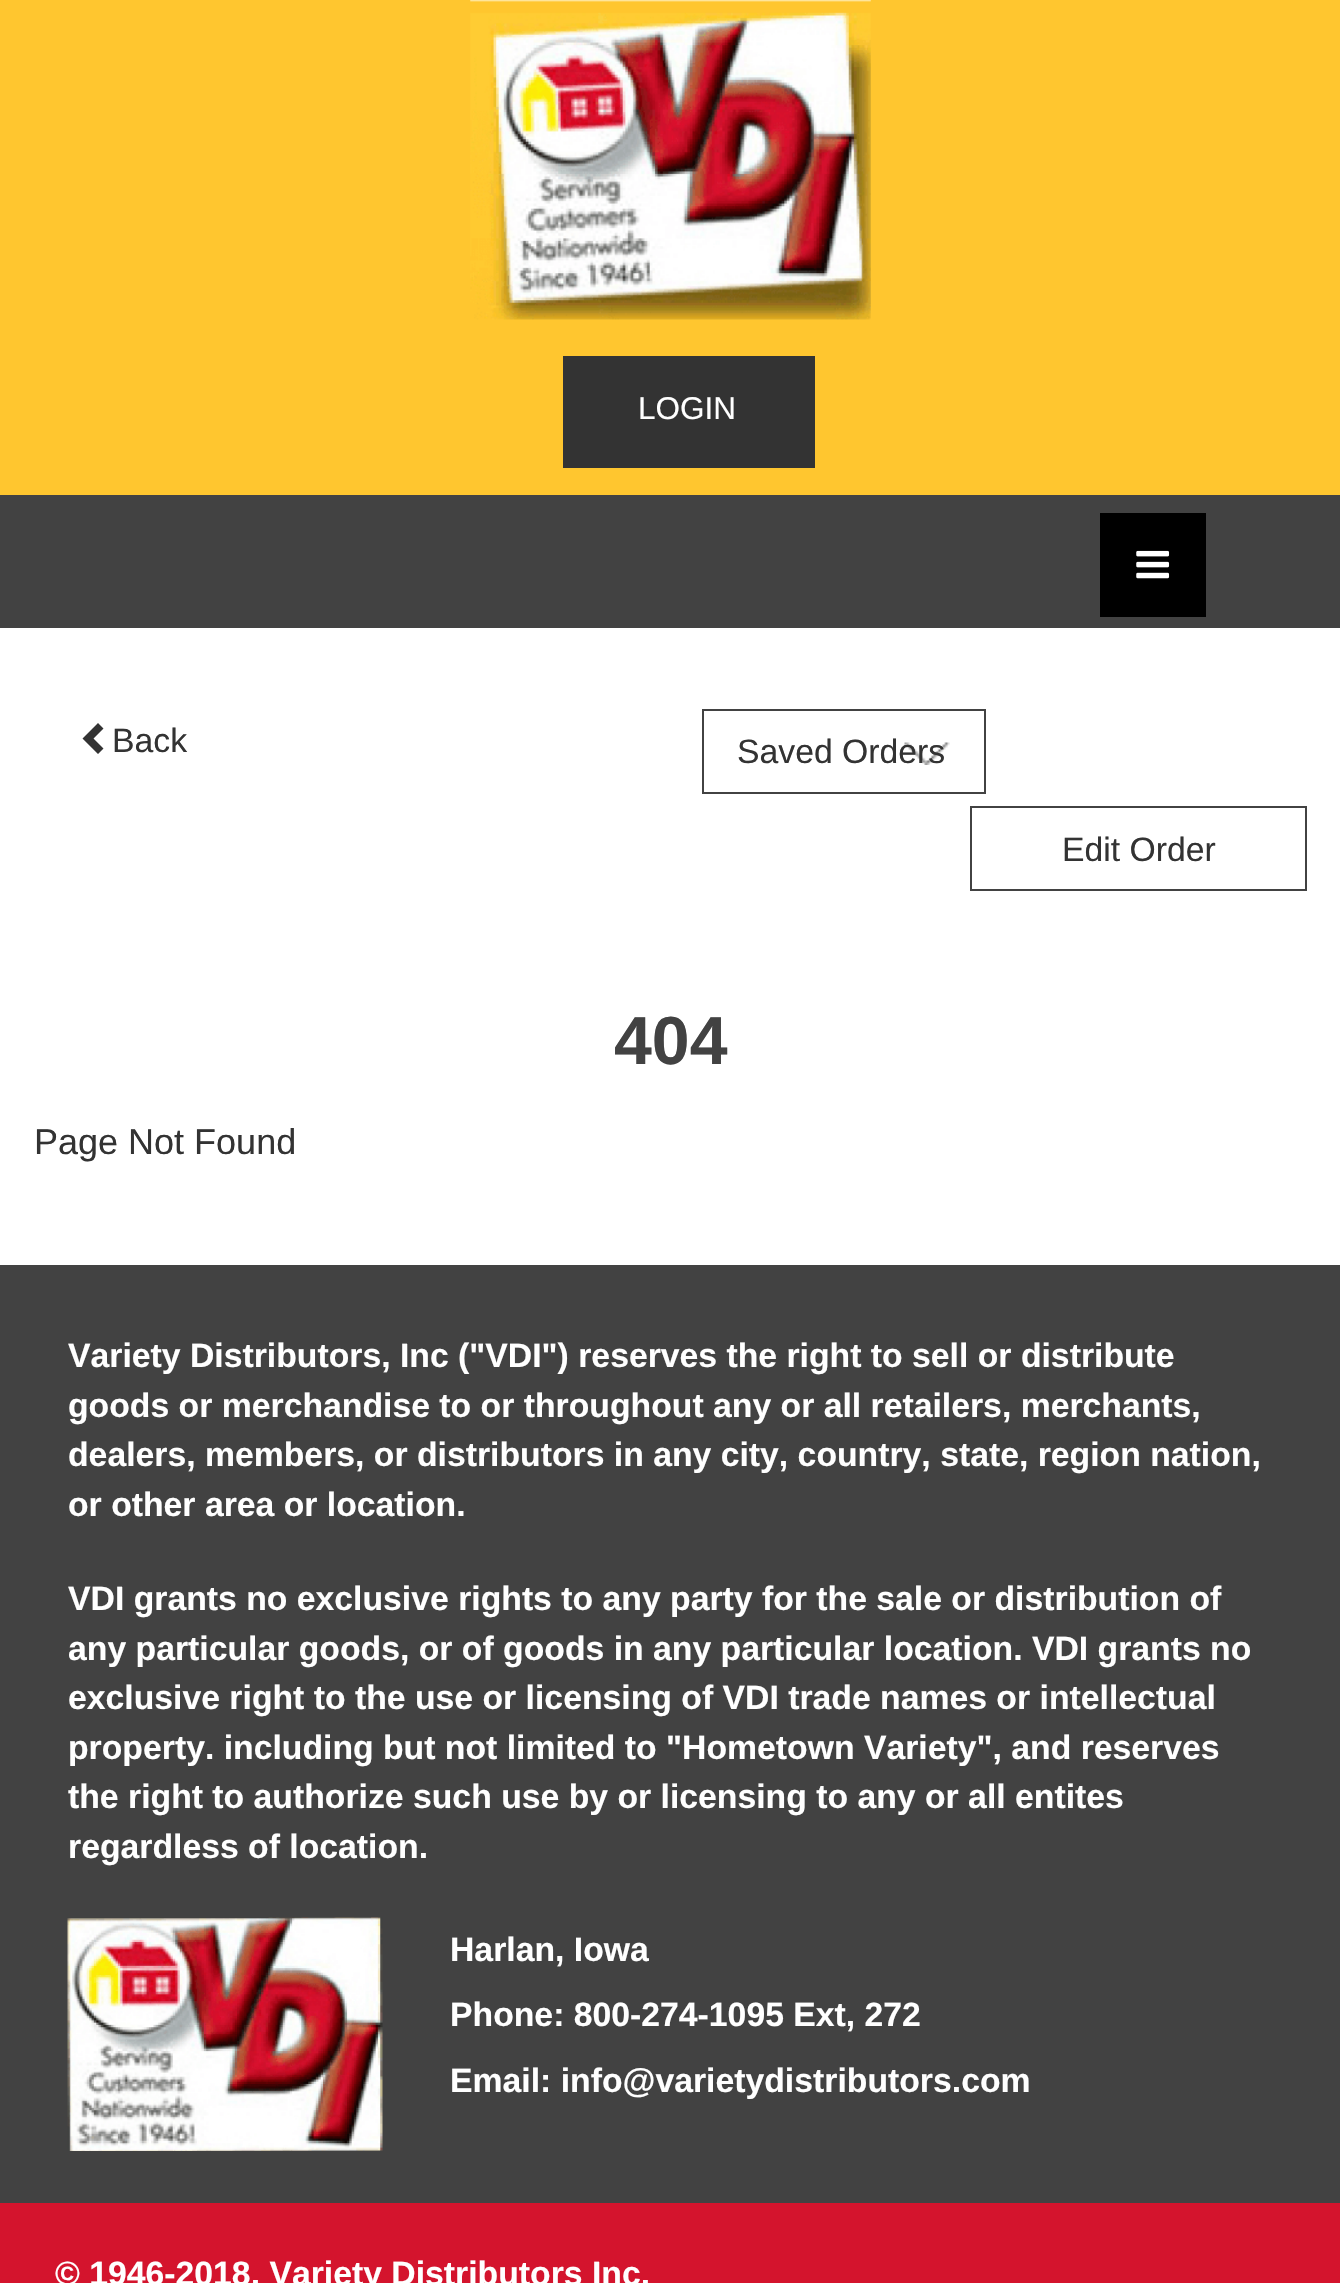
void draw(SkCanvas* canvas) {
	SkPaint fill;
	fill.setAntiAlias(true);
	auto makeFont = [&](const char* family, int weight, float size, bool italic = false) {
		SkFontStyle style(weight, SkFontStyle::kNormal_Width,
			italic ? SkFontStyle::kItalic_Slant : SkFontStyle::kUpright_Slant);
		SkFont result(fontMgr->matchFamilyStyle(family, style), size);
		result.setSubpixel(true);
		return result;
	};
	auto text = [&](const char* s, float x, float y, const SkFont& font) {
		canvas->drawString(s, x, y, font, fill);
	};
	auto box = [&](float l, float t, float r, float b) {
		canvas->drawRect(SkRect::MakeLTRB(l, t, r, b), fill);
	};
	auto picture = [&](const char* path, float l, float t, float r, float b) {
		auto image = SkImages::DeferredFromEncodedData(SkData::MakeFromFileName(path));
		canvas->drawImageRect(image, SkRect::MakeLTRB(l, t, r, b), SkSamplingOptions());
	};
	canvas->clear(0xFFFFFFFF);
	fill.setColor(0xFFFFC62F);
	box(0, 0, 1340, 495);
	picture("image0.png", 470, 0, 871, 320);
	fill.setColor(0xFF333333);
	box(563, 356, 815, 468);
	fill.setColor(0xFF424242);
	box(0, 495, 1340, 628);
	fill.setColor(0xFF000000);
	box(1100, 513, 1206, 617);
	picture("image1.png", 1136, 550, 1170, 579);
	fill.setColor(0xFF333333);
	canvas->drawPath(SkPathBuilder().moveTo(103.5f, 728.5f).lineTo(93.5f, 738.5f).lineTo(103.5f, 748.5f).lineTo(98, 754).lineTo(82.5f, 738.5f).lineTo(98, 723).close().detach(), fill);
	picture("image2.png", 904, 742, 950, 765);
	fill.setStyle(SkPaint::kStroke_Style);
	fill.setStrokeWidth(2);
	fill.setColor(0xFF424242);
	canvas->drawRect(SkRect::MakeLTRB(703, 710, 985, 793), fill);
	canvas->drawRect(SkRect::MakeLTRB(971, 807, 1306, 890), fill);
	fill.setStyle(SkPaint::kFill_Style);
	box(0, 1265, 1340, 2203);
	picture("image3.png", 67, 1917, 383, 2151);
	fill.setColor(0xFFD4142D);
	box(0, 2203, 1340, 2283);
	auto font1 = makeFont("Liberation Sans", 400, 31.5f);
	fill.setColor(0xFFFFFFFF);
	text("LOGIN", 638, 419, font1);
	auto font2 = makeFont("Liberation Sans", 400, 33.75f);
	fill.setColor(0xFF333333);
	text("Back", 112, 752, font2);
	text("Saved Orders", 737, 763, font2);
	text("Edit Order", 1062, 861, font2);
	auto font3 = makeFont("Liberation Sans", 700, 68);
	fill.setColor(0xFF424242);
	text("404", 614, 1064, font3);
	auto font4 = makeFont("Liberation Sans", 400, 36);
	fill.setColor(0xFF333333);
	text("Page Not Found", 34, 1154, font4);
	auto font5 = makeFont("Liberation Sans", 700, 33.75f);
	fill.setColor(0xFFFFFFFF);
	text("Variety Distributors, Inc (\"VDI\") reserves the right to sell or distribute", 68, 1367, font5);
	text("goods or merchandise to or throughout any or all retailers, merchants,", 68, 1417, font5);
	text("dealers, members, or distributors in any city, country, state, region nation,", 68, 1466, font5);
	text("or other area or location.", 68, 1516, font5);
	text("VDI grants no exclusive rights to any party for the sale or distribution of", 68, 1610, font5);
	text("any particular goods, or of goods in any particular location. VDI grants no", 68, 1660, font5);
	text("exclusive right to the use or licensing of VDI trade names or intellectual", 68, 1709, font5);
	text("property. including but not limited to \"Hometown Variety\", and reserves", 68, 1759, font5);
	text("the right to authorize such use by or licensing to any or all entites", 68, 1808, font5);
	text("regardless of location.", 68, 1858, font5);
	text("Harlan, Iowa", 450, 1961, font5);
	text("Phone: 800-274-1095 Ext, 272", 450, 2026, font5);
	text("Email: info@varietydistributors.com", 450, 2092, font5);
	text("© 1946-2018, Variety Distributors Inc.", 55, 2285, font5);
}
